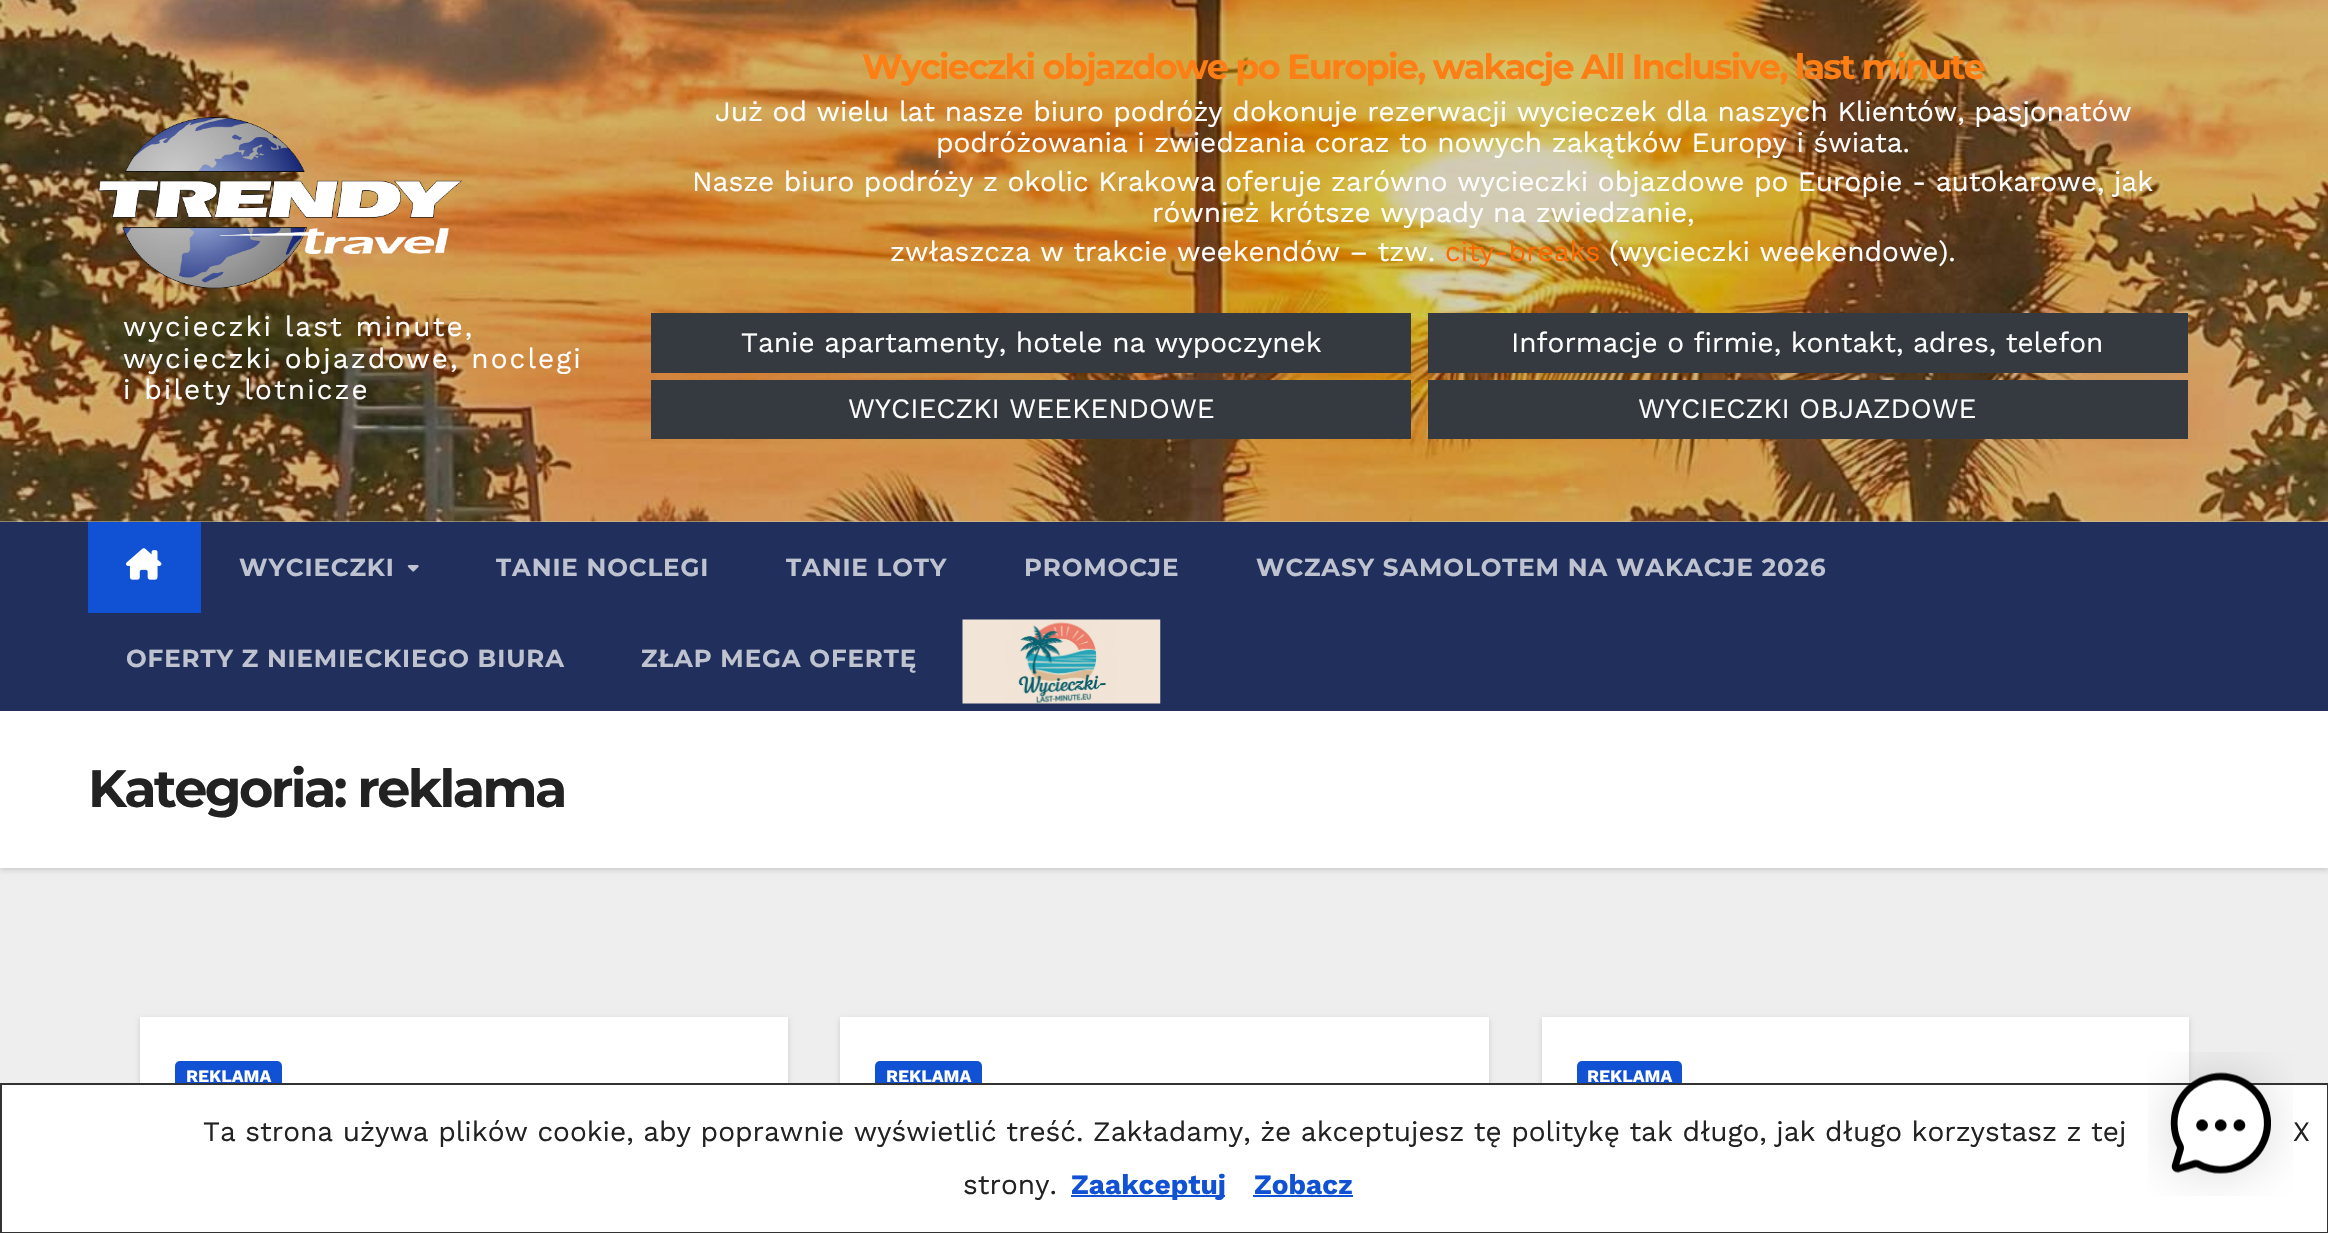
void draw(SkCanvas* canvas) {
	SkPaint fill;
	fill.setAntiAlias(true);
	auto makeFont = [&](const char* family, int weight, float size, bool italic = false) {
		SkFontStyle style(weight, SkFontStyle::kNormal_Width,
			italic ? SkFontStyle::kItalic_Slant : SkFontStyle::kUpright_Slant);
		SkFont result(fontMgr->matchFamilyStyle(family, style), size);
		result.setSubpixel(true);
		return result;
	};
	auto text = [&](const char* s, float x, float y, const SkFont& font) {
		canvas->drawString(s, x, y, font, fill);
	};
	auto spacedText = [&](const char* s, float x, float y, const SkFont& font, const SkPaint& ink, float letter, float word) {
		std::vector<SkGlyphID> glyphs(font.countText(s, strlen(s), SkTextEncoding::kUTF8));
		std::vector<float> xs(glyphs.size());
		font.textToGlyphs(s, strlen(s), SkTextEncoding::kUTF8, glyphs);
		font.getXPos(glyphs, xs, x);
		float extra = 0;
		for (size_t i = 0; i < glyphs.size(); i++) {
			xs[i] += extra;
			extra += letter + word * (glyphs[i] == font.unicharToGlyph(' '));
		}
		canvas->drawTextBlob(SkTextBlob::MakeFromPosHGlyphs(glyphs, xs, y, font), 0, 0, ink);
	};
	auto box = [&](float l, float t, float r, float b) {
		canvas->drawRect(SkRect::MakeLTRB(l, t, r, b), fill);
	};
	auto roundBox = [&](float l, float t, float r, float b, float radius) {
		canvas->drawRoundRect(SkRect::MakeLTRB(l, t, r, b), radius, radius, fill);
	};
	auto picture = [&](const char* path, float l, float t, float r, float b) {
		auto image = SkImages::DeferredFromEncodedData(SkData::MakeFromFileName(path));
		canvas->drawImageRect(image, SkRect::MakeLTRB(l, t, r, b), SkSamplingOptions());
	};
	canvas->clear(0xFFEEEEEE);
	fill.setColor(0xFFC6C8B7);
	box(0, 521, 2328, 522);
	picture("image0.png", 0, 0, 2328, 522);
	picture("image1.png", 98, 117, 462, 289);
	fill.setColor(0xFF343A40);
	box(651, 313, 1411, 373);
	box(1428, 313, 2188, 373);
	box(651, 380, 1411, 439);
	box(1428, 380, 2188, 439);
	fill.setColor(0x26000000);
	fill.setMaskFilter(SkMaskFilter::MakeBlur(kNormal_SkBlurStyle, 2.5f));
	canvas->drawRect(SkRect::MakeLTRB(0, 712, 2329, 870), fill);
	fill.setMaskFilter(nullptr);
	fill.setColor(0xFF202F5B);
	box(0, 522, 2328, 711);
	fill.setColor(0xFF1151D3);
	box(88, 522, 201, 613);
	picture("image2.png", 126, 548, 162, 580);
	picture("image3.png", 407, 565, 419, 572);
	picture("image4.png", 962, 619, 1161, 704);
	fill.setColor(0xFFFFFFFF);
	box(0, 711, 2328, 868);
	fill.setColor(0x26000000);
	fill.setMaskFilter(SkMaskFilter::MakeBlur(kNormal_SkBlurStyle, 2.5f));
	canvas->drawRect(SkRect::MakeLTRB(140, 1019, 788, 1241), fill);
	fill.setMaskFilter(nullptr);
	fill.setColor(0xFFFFFFFF);
	box(140, 1017, 788, 1083);
	fill.setColor(0xFF1151D3);
	roundBox(175, 1061, 282, 1092, 5);
	fill.setColor(0x26000000);
	fill.setMaskFilter(SkMaskFilter::MakeBlur(kNormal_SkBlurStyle, 2.5f));
	canvas->drawRect(SkRect::MakeLTRB(840, 1019, 1489, 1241), fill);
	fill.setMaskFilter(nullptr);
	fill.setColor(0xFFFFFFFF);
	box(840, 1017, 1489, 1083);
	fill.setColor(0xFF1151D3);
	roundBox(875, 1061, 982, 1092, 5);
	fill.setColor(0x26000000);
	fill.setMaskFilter(SkMaskFilter::MakeBlur(kNormal_SkBlurStyle, 2.5f));
	canvas->drawRect(SkRect::MakeLTRB(1542, 1019, 2189, 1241), fill);
	fill.setMaskFilter(nullptr);
	fill.setColor(0xFFFFFFFF);
	box(1542, 1017, 2189, 1083);
	fill.setColor(0xFF1151D3);
	roundBox(1577, 1061, 1682, 1092, 5);
	fill.setColor(0xFFFFFFFF);
	canvas->drawRect(SkRect::MakeLTRB(1, 1084, 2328, 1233), fill);
	fill.setStyle(SkPaint::kStroke_Style);
	fill.setStrokeWidth(2);
	fill.setColor(0xFF333333);
	canvas->drawRect(SkRect::MakeLTRB(1, 1084, 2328, 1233), fill);
	picture("image5.png", 2148, 1052, 2293, 1196);
	fill.setStyle(SkPaint::kFill_Style);
	fill.setColor(0xFF1151D3);
	box(1071, 1195, 1225, 1197);
	box(1253, 1195, 1353, 1197);
	auto font1 = makeFont("Work Sans", 400, 28);
	fill.setColor(0xFFFFFFFF);
	spacedText("wycieczki last minute,", 123, 336, font1, fill, 2.1f, 0);
	spacedText("wycieczki objazdowe, noclegi", 123, 368, font1, fill, 2.1f, 0);
	spacedText("i bilety lotnicze", 123, 399, font1, fill, 2.1f, 0);
	auto font2 = makeFont("Montserrat", 700, 35);
	fill.setColor(0xFFFD7E14);
	spacedText("Wycieczki objazdowe po Europie, wakacje All Inclusive, last minute", 862, 79, font2, fill, -1.75f, 0);
	fill.setColor(0xFFFFFFFF);
	text("Już od wielu lat nasze biuro podróży dokonuje rezerwacji wycieczek dla naszych Klientów, pasjonatów", 715, 121, font1);
	text("podróżowania i zwiedzania coraz to nowych zakątków Europy i świata.", 936, 152, font1);
	text("Nasze biuro podróży z okolic Krakowa oferuje zarówno wycieczki objazdowe po Europie - autokarowe, jak", 692, 191, font1);
	text("również krótsze wypady na zwiedzanie,", 1152, 222, font1);
	text("zwłaszcza w trakcie weekendów – tzw.", 890, 261, font1);
	fill.setColor(0xFFFF6900);
	text("city-breaks", 1445, 261, font1);
	fill.setColor(0xFFFFFFFF);
	text("(wycieczki weekendowe).", 1609, 261, font1);
	text("Tanie apartamenty, hotele na wypoczynek", 741, 352, font1);
	text("Informacje o firmie, kontakt, adres, telefon", 1511, 352, font1);
	text("WYCIECZKI WEEKENDOWE", 848, 418, font1);
	text("WYCIECZKI OBJAZDOWE", 1638, 418, font1);
	auto font3 = makeFont("Montserrat", 700, 24.5f);
	fill.setColor(0xFFBEC3CF);
	spacedText("WYCIECZKI", 239, 576, font3, fill, 0.9f, 0);
	spacedText("TANIE NOCLEGI", 496, 576, font3, fill, 0.9f, 0);
	spacedText("TANIE LOTY", 786, 576, font3, fill, 0.9f, 0);
	spacedText("PROMOCJE", 1024, 576, font3, fill, 0.9f, 0);
	spacedText("WCZASY SAMOLOTEM NA WAKACJE 2026", 1256, 576, font3, fill, 0.9f, 0);
	spacedText("OFERTY Z NIEMIECKIEGO BIURA", 126, 667, font3, fill, 0.9f, 0);
	spacedText("ZŁAP MEGA OFERTĘ", 641, 667, font3, fill, 0.9f, 0);
	auto font4 = makeFont("Montserrat", 700, 52.5f);
	fill.setColor(0xFF222222);
	spacedText("Kategoria: reklama", 88, 807, font4, fill, -2.6f, 0);
	auto font5 = makeFont("Work Sans", 700, 17.5f);
	fill.setColor(0xFFFFFFFF);
	text("REKLAMA", 186, 1082, font5);
	text("REKLAMA", 886, 1082, font5);
	text("REKLAMA", 1587, 1082, font5);
	fill.setColor(0xFF222222);
	text("Ta strona używa plików cookie, aby poprawnie wyświetlić treść. Zakładamy, że akceptujesz tę politykę tak długo, jak długo korzystasz z tej", 203, 1141, font1);
	text("X", 2293, 1141, font1);
	text("strony.", 963, 1194, font1);
	auto font6 = makeFont("Work Sans", 700, 28);
	fill.setColor(0xFF1151D3);
	text("Zaakceptuj", 1071, 1194, font6);
	text("Zobacz", 1254, 1194, font6);
}
